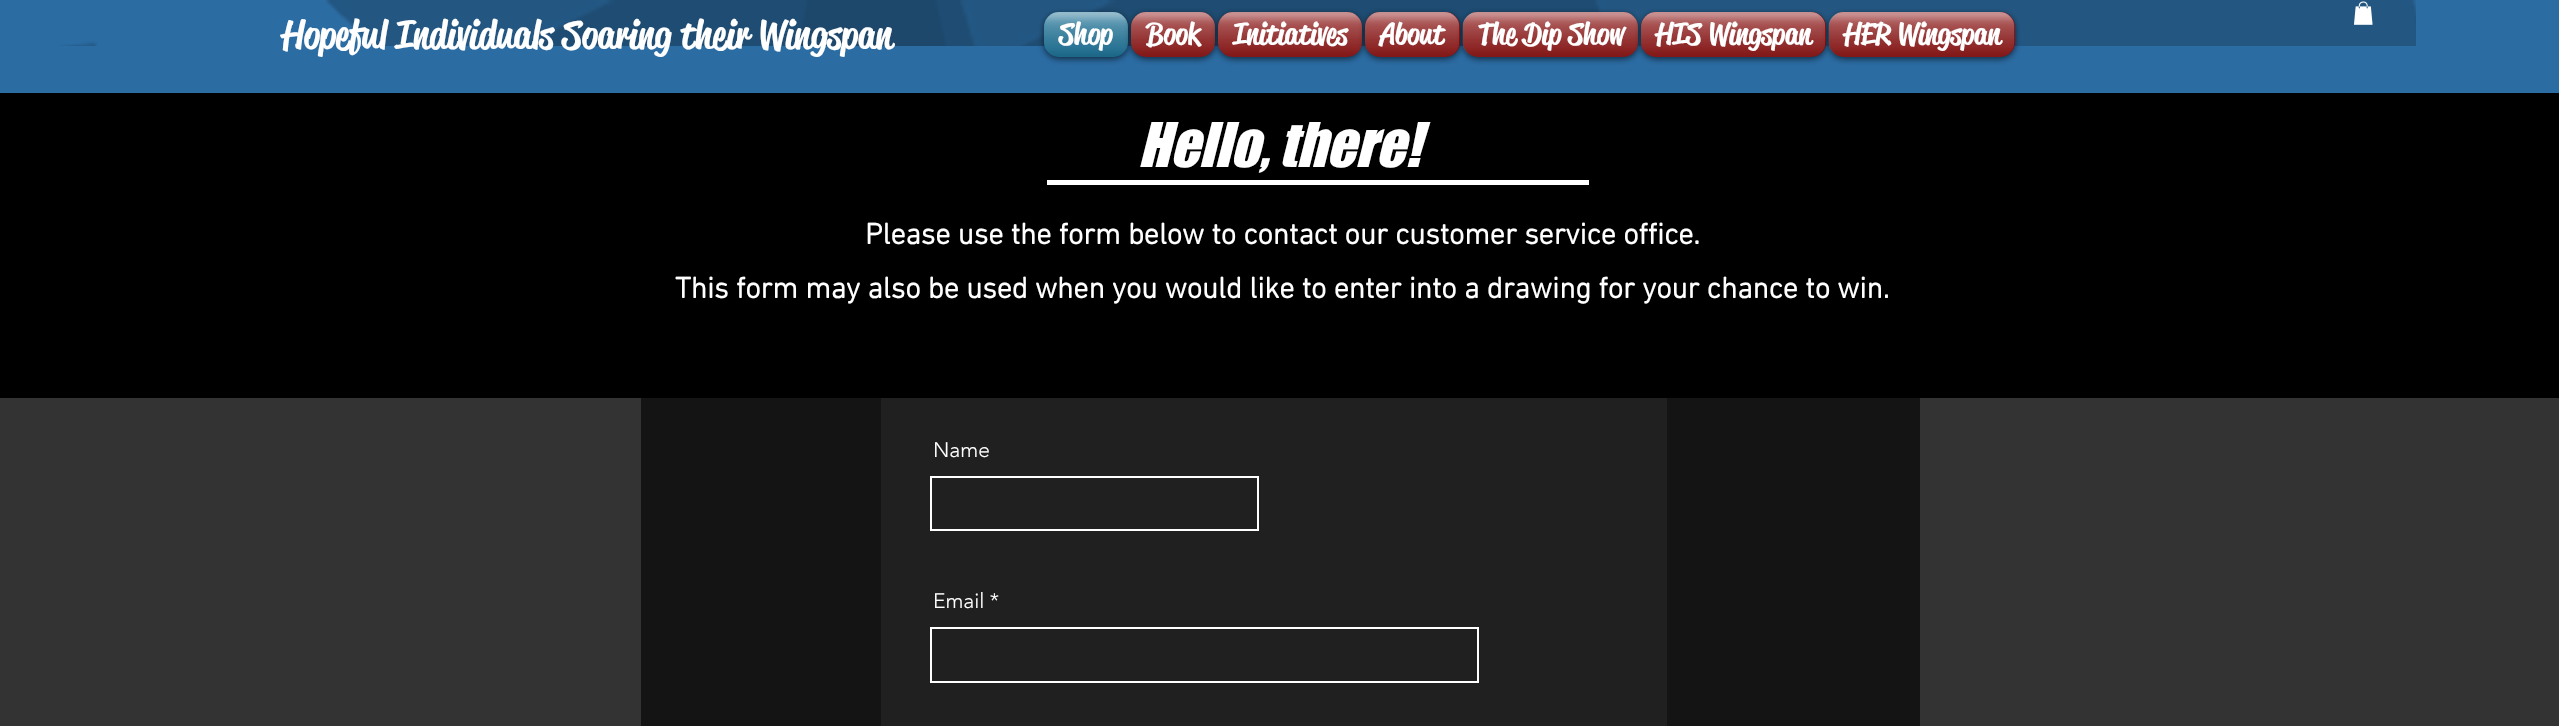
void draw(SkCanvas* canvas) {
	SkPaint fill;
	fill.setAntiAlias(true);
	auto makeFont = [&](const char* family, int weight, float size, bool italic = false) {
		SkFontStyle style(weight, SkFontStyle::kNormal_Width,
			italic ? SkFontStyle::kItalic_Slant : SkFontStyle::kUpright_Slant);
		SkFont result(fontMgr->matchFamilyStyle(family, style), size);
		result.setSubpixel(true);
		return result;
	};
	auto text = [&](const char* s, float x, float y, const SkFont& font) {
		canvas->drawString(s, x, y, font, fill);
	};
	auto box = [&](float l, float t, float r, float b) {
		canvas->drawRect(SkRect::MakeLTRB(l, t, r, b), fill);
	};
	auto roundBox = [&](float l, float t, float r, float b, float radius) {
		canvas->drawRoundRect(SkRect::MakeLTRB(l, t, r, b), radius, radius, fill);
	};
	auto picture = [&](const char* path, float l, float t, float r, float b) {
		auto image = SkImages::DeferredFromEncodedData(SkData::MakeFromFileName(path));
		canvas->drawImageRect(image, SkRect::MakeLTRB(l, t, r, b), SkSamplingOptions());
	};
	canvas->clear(0xFF000000);
	fill.setColor(0xFF2B6CA3);
	box(0, 0, 2559, 93);
	picture("image0.png", 59, 0, 2416, 46);
	picture("image1.png", 2354, 1, 2373, 25);
	fill.setColor(0x99000000);
	fill.setMaskFilter(SkMaskFilter::MakeBlur(kNormal_SkBlurStyle, 3));
	canvas->drawRoundRect(SkRect::MakeLTRB(1044, 14, 1128, 59), 15, 15, fill);
	fill.setMaskFilter(nullptr);
	fill.setColor(0xFF046893);
	roundBox(1044, 12, 1128, 57, 15);
	picture("image2.png", 1044, 12, 1128, 57);
	picture("image3.png", 1044, 12, 1128, 57);
	fill.setColor(0x99000000);
	fill.setMaskFilter(SkMaskFilter::MakeBlur(kNormal_SkBlurStyle, 3));
	canvas->drawRoundRect(SkRect::MakeLTRB(1131, 14, 1215, 59), 15, 15, fill);
	fill.setMaskFilter(nullptr);
	fill.setColor(0xFF8B0000);
	roundBox(1131, 12, 1215, 57, 15);
	picture("image4.png", 1131, 12, 1215, 57);
	picture("image5.png", 1131, 12, 1215, 57);
	fill.setColor(0x99000000);
	fill.setMaskFilter(SkMaskFilter::MakeBlur(kNormal_SkBlurStyle, 3));
	canvas->drawRoundRect(SkRect::MakeLTRB(1218, 14, 1362, 59), 15, 15, fill);
	fill.setMaskFilter(nullptr);
	fill.setColor(0xFF8B0000);
	roundBox(1218, 12, 1362, 57, 15);
	picture("image6.png", 1218, 12, 1362, 57);
	picture("image7.png", 1218, 12, 1362, 57);
	fill.setColor(0x99000000);
	fill.setMaskFilter(SkMaskFilter::MakeBlur(kNormal_SkBlurStyle, 3));
	canvas->drawRoundRect(SkRect::MakeLTRB(1365, 14, 1460, 59), 15, 15, fill);
	fill.setMaskFilter(nullptr);
	fill.setColor(0xFF8B0000);
	roundBox(1365, 12, 1460, 57, 15);
	picture("image8.png", 1365, 12, 1460, 57);
	picture("image9.png", 1365, 12, 1459, 57);
	fill.setColor(0x99000000);
	fill.setMaskFilter(SkMaskFilter::MakeBlur(kNormal_SkBlurStyle, 3));
	canvas->drawRoundRect(SkRect::MakeLTRB(1463, 14, 1638, 59), 15, 15, fill);
	fill.setMaskFilter(nullptr);
	fill.setColor(0xFF8B0000);
	roundBox(1463, 12, 1638, 57, 15);
	picture("image10.png", 1462, 12, 1638, 57);
	picture("image11.png", 1463, 12, 1638, 57);
	fill.setColor(0x99000000);
	fill.setMaskFilter(SkMaskFilter::MakeBlur(kNormal_SkBlurStyle, 3));
	canvas->drawRoundRect(SkRect::MakeLTRB(1641, 14, 1826, 59), 15, 15, fill);
	fill.setMaskFilter(nullptr);
	fill.setColor(0xFF8B0000);
	roundBox(1641, 12, 1826, 57, 15);
	picture("image12.png", 1641, 12, 1826, 57);
	picture("image13.png", 1641, 12, 1825, 57);
	fill.setColor(0x99000000);
	fill.setMaskFilter(SkMaskFilter::MakeBlur(kNormal_SkBlurStyle, 3));
	canvas->drawRoundRect(SkRect::MakeLTRB(1829, 14, 2015, 59), 15, 15, fill);
	fill.setMaskFilter(nullptr);
	fill.setColor(0xFF8B0000);
	roundBox(1829, 12, 2015, 57, 15);
	picture("image14.png", 1828, 12, 2015, 57);
	picture("image15.png", 1829, 12, 2014, 57);
	fill.setColor(0xFFFFFFFF);
	box(1047, 180, 1589, 185);
	fill.setColor(0xFF333333);
	box(0, 398, 641, 726);
	fill.setColor(0xFF141414);
	box(641, 398, 1920, 726);
	fill.setColor(0xFF202020);
	box(881, 398, 1667, 726);
	fill.setStyle(SkPaint::kStroke_Style);
	fill.setStrokeWidth(2);
	fill.setColor(0xFFFFFFFF);
	canvas->drawRect(SkRect::MakeLTRB(931, 477, 1258, 530), fill);
	canvas->drawRect(SkRect::MakeLTRB(931, 628, 1478, 682), fill);
	fill.setStyle(SkPaint::kFill_Style);
	fill.setColor(0xFF333333);
	box(1920, 398, 2559, 726);
	auto font1 = makeFont("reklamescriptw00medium", 500, 39);
	fill.setColor(0xFFFFFFFF);
	text("Hopeful Individuals Soaring their Wingspan", 282, 48, font1);
	auto font2 = makeFont("reklamescriptw00medium", 500, 30);
	text("Shop", 1059, 44, font2);
	text("Book", 1146, 44, font2);
	text("Initiatives", 1233, 44, font2);
	text("About", 1380, 44, font2);
	text("The Dip Show", 1478, 44, font2);
	text("HIS Wingspan", 1656, 44, font2);
	text("HER Wingspan", 1844, 44, font2);
	auto font3 = makeFont("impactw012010", 400, 57, true);
	text("Hello, there!", 1138, 167, font3);
	auto font4 = makeFont("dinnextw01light", 700, 30);
	text("Please use the form below to contact our customer service office.", 865, 244, font4);
	text("This form may also be used when you would like to enter into a drawing for your chance to win.", 675, 298, font4);
	auto font5 = makeFont("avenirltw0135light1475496", 300, 21);
	text("Name", 933, 457, font5);
	text("Email *", 933, 608, font5);
}
